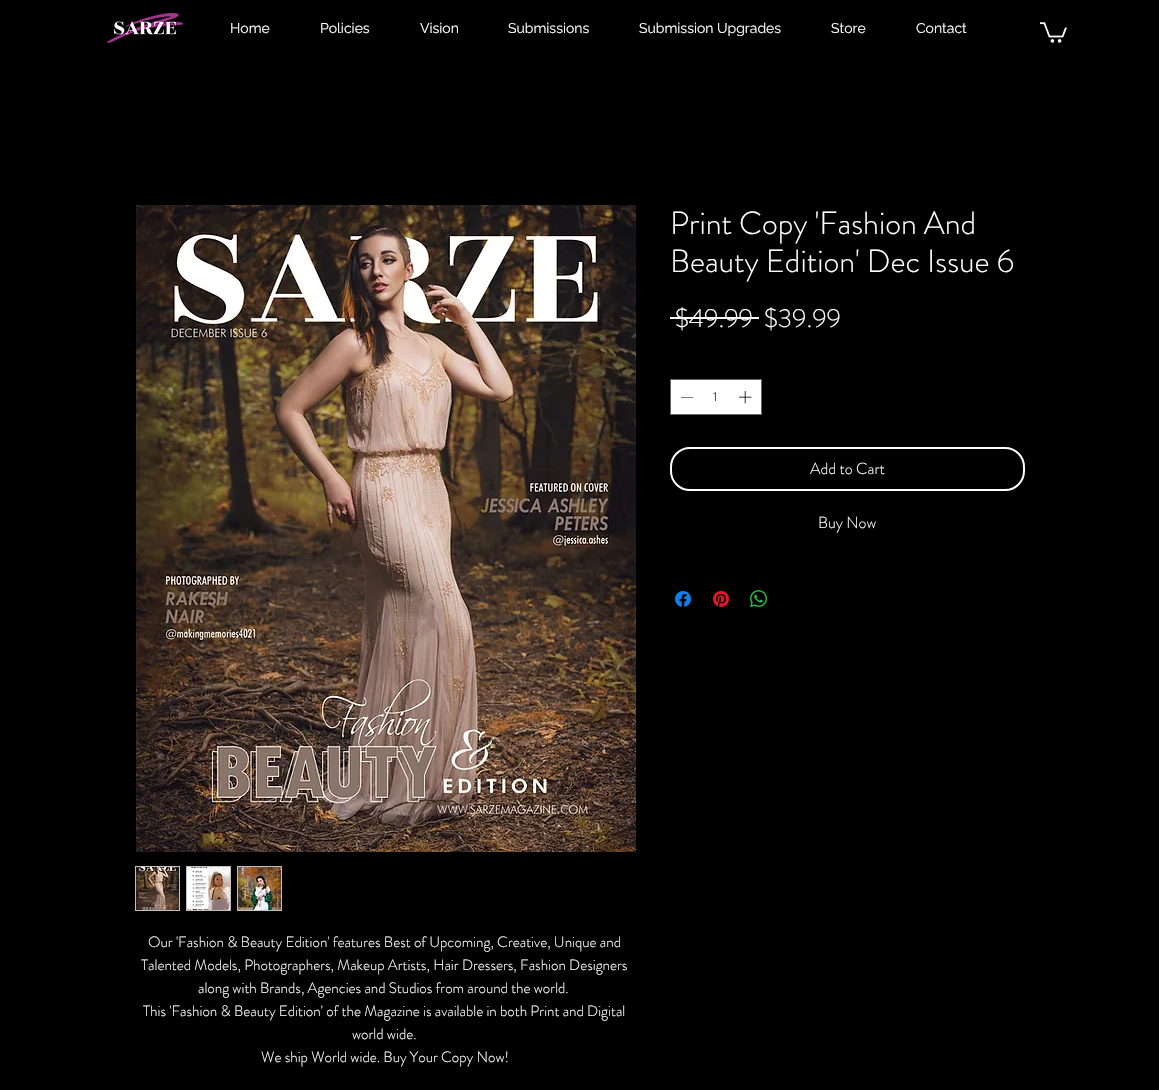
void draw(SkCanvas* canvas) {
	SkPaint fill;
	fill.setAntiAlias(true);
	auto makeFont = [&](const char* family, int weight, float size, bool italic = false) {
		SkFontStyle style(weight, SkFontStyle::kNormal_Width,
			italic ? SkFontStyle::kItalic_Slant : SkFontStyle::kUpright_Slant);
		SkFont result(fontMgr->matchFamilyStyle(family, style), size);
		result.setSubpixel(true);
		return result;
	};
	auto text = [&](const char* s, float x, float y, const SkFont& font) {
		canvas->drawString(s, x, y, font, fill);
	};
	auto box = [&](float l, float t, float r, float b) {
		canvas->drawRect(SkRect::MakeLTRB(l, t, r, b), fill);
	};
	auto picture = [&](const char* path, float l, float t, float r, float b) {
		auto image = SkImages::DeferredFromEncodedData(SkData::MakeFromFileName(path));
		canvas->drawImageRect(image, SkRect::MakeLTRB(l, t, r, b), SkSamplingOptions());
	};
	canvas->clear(0xFF000000);
	picture("image0.png", 107, 13, 183, 43);
	picture("image1.png", 1040, 22, 1067, 43);
	fill.setColor(0xFFFFFFFF);
	box(670, 317, 759, 319);
	canvas->drawRect(SkRect::MakeLTRB(670.5f, 379.5f, 761.5f, 414.5f), fill);
	fill.setStyle(SkPaint::kStroke_Style);
	fill.setStrokeWidth(1);
	fill.setColor(0xFF666666);
	canvas->drawRect(SkRect::MakeLTRB(670.5f, 379.5f, 761.5f, 414.5f), fill);
	fill.setStyle(SkPaint::kFill_Style);
	fill.setColor(0xFF000000);
	canvas->drawPath(SkPathBuilder(SkPathFillType::kEvenOdd).moveTo(693, 397).lineTo(693, 397.5f).lineTo(681, 397.5f).lineTo(681, 397).close().detach(), fill);
	picture("image2.png", 739, 391, 752, 404);
	fill.setStyle(SkPaint::kStroke_Style);
	fill.setStrokeWidth(2);
	fill.setColor(0xFFFFFFFF);
	canvas->drawRoundRect(SkRect::MakeLTRB(671, 448, 1024, 490), 19, 19, fill);
	picture("image3.png", 675, 591, 691, 607);
	picture("image4.png", 713, 591, 729, 607);
	picture("image5.png", 750, 590, 767, 607);
	picture("image6.png", 136, 205, 636, 852);
	fill.setStyle(SkPaint::kFill_Style);
	fill.setColor(0xFFBFBFBF);
	box(135, 866, 180, 911);
	picture("image7.png", 136, 867, 179, 910);
	box(186, 866, 231, 911);
	picture("image8.png", 187, 867, 230, 910);
	box(237, 866, 282, 911);
	picture("image9.png", 238, 867, 281, 910);
	auto font1 = makeFont("Raleway", 400, 14);
	fill.setColor(0xFFFFFFFF);
	text("Home", 230, 33, font1);
	text("Policies", 320, 33, font1);
	text("Vision", 420, 33, font1);
	text("Submissions", 508, 33, font1);
	text("Submission Upgrades", 639, 33, font1);
	text("Store", 831, 33, font1);
	text("Contact", 916, 33, font1);
	auto font2 = makeFont("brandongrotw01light", 300, 32);
	text("Print Copy 'Fashion And", 670, 234, font2);
	text("Beauty Edition' Dec Issue 6", 670, 272, font2);
	auto font3 = makeFont("brandongrotw01light", 300, 26);
	text("$49.99", 675, 327, font3);
	text("$39.99", 764, 327, font3);
	auto font4 = makeFont("brandongrotw01light", 300, 13);
	fill.setColor(0xFF000000);
	text("1", 713, 401, font4);
	auto font5 = makeFont("brandongrotw01light", 300, 16);
	fill.setColor(0xFFFFFFFF);
	text("Add to Cart", 810, 474, font5);
	text("Buy Now", 818, 528, font5);
	auto font6 = makeFont("brandongrotw01light", 300, 15);
	text("Our 'Fashion & Beauty Edition' features Best of Upcoming, Creative, Unique and", 148, 947, font6);
	text("Talented Models, Photographers, Makeup Artists, Hair Dressers, Fashion Designers", 141, 970, font6);
	text("along with Brands, Agencies and Studios from around the world.", 198, 993, font6);
	text("This 'Fashion & Beauty Edition' of the Magazine is available in both Print and Digital", 143, 1016, font6);
	text("world wide.", 352, 1039, font6);
	text("We ship World wide. Buy Your Copy Now!", 261, 1062, font6);
}
